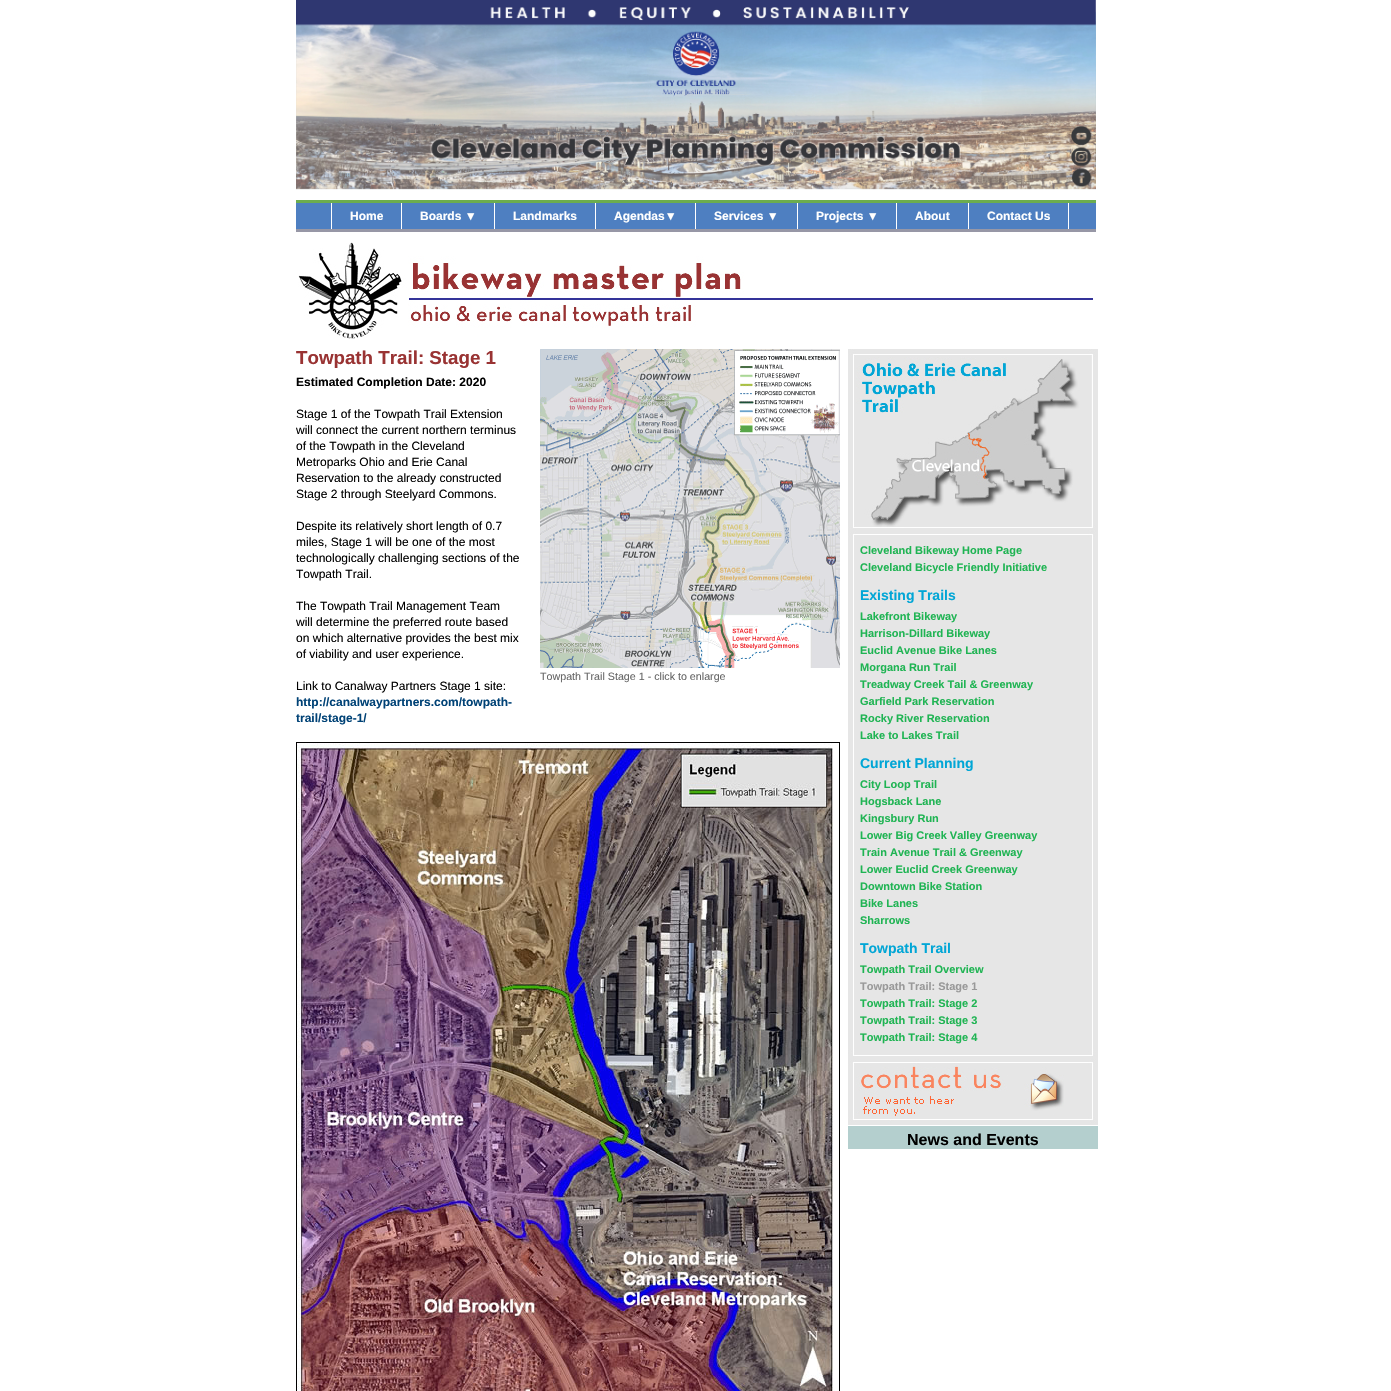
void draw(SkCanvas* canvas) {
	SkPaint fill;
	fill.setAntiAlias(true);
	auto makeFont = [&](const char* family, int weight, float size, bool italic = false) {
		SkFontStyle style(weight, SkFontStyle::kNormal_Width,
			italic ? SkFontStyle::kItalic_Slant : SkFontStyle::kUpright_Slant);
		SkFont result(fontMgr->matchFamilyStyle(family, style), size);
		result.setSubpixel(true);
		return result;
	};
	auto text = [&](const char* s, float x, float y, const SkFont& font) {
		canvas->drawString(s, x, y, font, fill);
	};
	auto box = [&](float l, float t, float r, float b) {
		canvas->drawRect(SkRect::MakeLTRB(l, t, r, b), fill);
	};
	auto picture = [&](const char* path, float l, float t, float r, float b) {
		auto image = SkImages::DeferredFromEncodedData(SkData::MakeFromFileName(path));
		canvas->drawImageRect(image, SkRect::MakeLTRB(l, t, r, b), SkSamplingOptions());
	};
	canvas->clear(0xFFFFFFFF);
	picture("image0.png", 296, 0, 1096, 190);
	fill.setColor(0xFF6CAD4F);
	box(296, 200, 1096, 203);
	fill.setColor(0xFF4E7FC1);
	box(296, 203, 1096, 229);
	fill.setColor(0xFFFFFFFF);
	box(331, 203, 332, 229);
	box(401, 203, 402, 229);
	box(494, 203, 495, 229);
	box(595, 203, 596, 229);
	box(695, 203, 696, 229);
	box(797, 203, 798, 229);
	box(896, 203, 897, 229);
	box(968, 203, 969, 229);
	box(1068, 203, 1069, 229);
	fill.setColor(0xFF9797A6);
	box(296, 229, 1096, 232);
	picture("image1.png", 298, 242, 1093, 339);
	picture("image2.png", 540, 349, 840, 668);
	fill.setStyle(SkPaint::kStroke_Style);
	fill.setStrokeWidth(1);
	fill.setColor(0xFF000000);
	canvas->drawRect(SkRect::MakeLTRB(296.5f, 742.5f, 839.5f, 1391.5f), fill);
	picture("image3.png", 297, 743, 833, 1391);
	picture("image4.png", 848, 349, 1098, 531);
	picture("image5.png", 848, 531, 1098, 539);
	picture("image6.png", 848, 539, 1098, 1048);
	picture("image7.png", 848, 1048, 1098, 1059);
	picture("image8.png", 848, 1059, 1098, 1125);
	fill.setStyle(SkPaint::kFill_Style);
	fill.setColor(0xFFB4CFCE);
	box(848, 1126, 1098, 1149);
	auto font1 = makeFont("Liberation Sans", 700, 12);
	fill.setColor(0xFFFFFFFF);
	text("Home", 350, 220, font1);
	text("Boards ▼", 420, 220, font1);
	text("Landmarks", 513, 220, font1);
	text("Agendas▼", 614, 220, font1);
	text("Services ▼", 714, 220, font1);
	text("Projects ▼", 816, 220, font1);
	text("About", 915, 220, font1);
	text("Contact Us", 987, 220, font1);
	auto font2 = makeFont("Liberation Sans", 700, 18.75f);
	fill.setColor(0xFF993333);
	text("Towpath Trail: Stage 1", 296, 364, font2);
	fill.setColor(0xFF000000);
	text("Estimated Completion Date: 2020", 296, 386, font1);
	auto font3 = makeFont("Liberation Sans", 400, 12);
	text("Stage 1 of the Towpath Trail Extension", 296, 418, font3);
	text("will connect the current northern terminus", 296, 434, font3);
	text("of the Towpath in the Cleveland", 296, 450, font3);
	text("Metroparks Ohio and Erie Canal", 296, 466, font3);
	text("Reservation to the already constructed", 296, 482, font3);
	text("Stage 2 through Steelyard Commons.", 296, 498, font3);
	text("Despite its relatively short length of 0.7", 296, 530, font3);
	text("miles, Stage 1 will be one of the most", 296, 546, font3);
	text("technologically challenging sections of the", 296, 562, font3);
	text("Towpath Trail.", 296, 578, font3);
	text("The Towpath Trail Management Team", 296, 610, font3);
	text("will determine the preferred route based", 296, 626, font3);
	text("on which alternative provides the best mix", 296, 642, font3);
	text("of viability and user experience.", 296, 658, font3);
	auto font4 = makeFont("Liberation Sans", 400, 10.7f);
	fill.setColor(0xFF666666);
	text("Towpath Trail Stage 1 - click to enlarge", 540, 680, font4);
	fill.setColor(0xFF000000);
	text("Link to Canalway Partners Stage 1 site:", 296, 690, font3);
	fill.setColor(0xFF004276);
	text("http://canalwaypartners.com/towpath-", 296, 706, font1);
	text("trail/stage-1/", 296, 722, font1);
	auto font5 = makeFont("Liberation Sans", 700, 11);
	fill.setColor(0xFF1FB453);
	text("Cleveland Bikeway Home Page", 860, 554, font5);
	text("Cleveland Bicycle Friendly Initiative", 860, 571, font5);
	auto font6 = makeFont("Liberation Sans", 700, 14);
	fill.setColor(0xFF01A6D6);
	text("Existing Trails", 860, 600, font6);
	fill.setColor(0xFF1FB453);
	text("Lakefront Bikeway", 860, 620, font5);
	text("Harrison-Dillard Bikeway", 860, 637, font5);
	text("Euclid Avenue Bike Lanes", 860, 654, font5);
	text("Morgana Run Trail", 860, 671, font5);
	text("Treadway Creek Tail & Greenway", 860, 688, font5);
	text("Garfield Park Reservation", 860, 705, font5);
	text("Rocky River Reservation", 860, 722, font5);
	text("Lake to Lakes Trail", 860, 739, font5);
	fill.setColor(0xFF01A6D6);
	text("Current Planning", 860, 768, font6);
	fill.setColor(0xFF1FB453);
	text("City Loop Trail", 860, 788, font5);
	text("Hogsback Lane", 860, 805, font5);
	text("Kingsbury Run", 860, 822, font5);
	text("Lower Big Creek Valley Greenway", 860, 839, font5);
	text("Train Avenue Trail & Greenway", 860, 856, font5);
	text("Lower Euclid Creek Greenway", 860, 873, font5);
	text("Downtown Bike Station", 860, 890, font5);
	text("Bike Lanes", 860, 907, font5);
	text("Sharrows", 860, 924, font5);
	fill.setColor(0xFF01A6D6);
	text("Towpath Trail", 860, 953, font6);
	fill.setColor(0xFF1FB453);
	text("Towpath Trail Overview", 860, 973, font5);
	fill.setColor(0xFF999999);
	text("Towpath Trail: Stage 1", 860, 990, font5);
	fill.setColor(0xFF1FB453);
	text("Towpath Trail: Stage 2", 860, 1007, font5);
	text("Towpath Trail: Stage 3", 860, 1024, font5);
	text("Towpath Trail: Stage 4", 860, 1041, font5);
	auto font7 = makeFont("Liberation Sans", 700, 16);
	fill.setColor(0xFF000000);
	text("News and Events", 907, 1145, font7);
}
